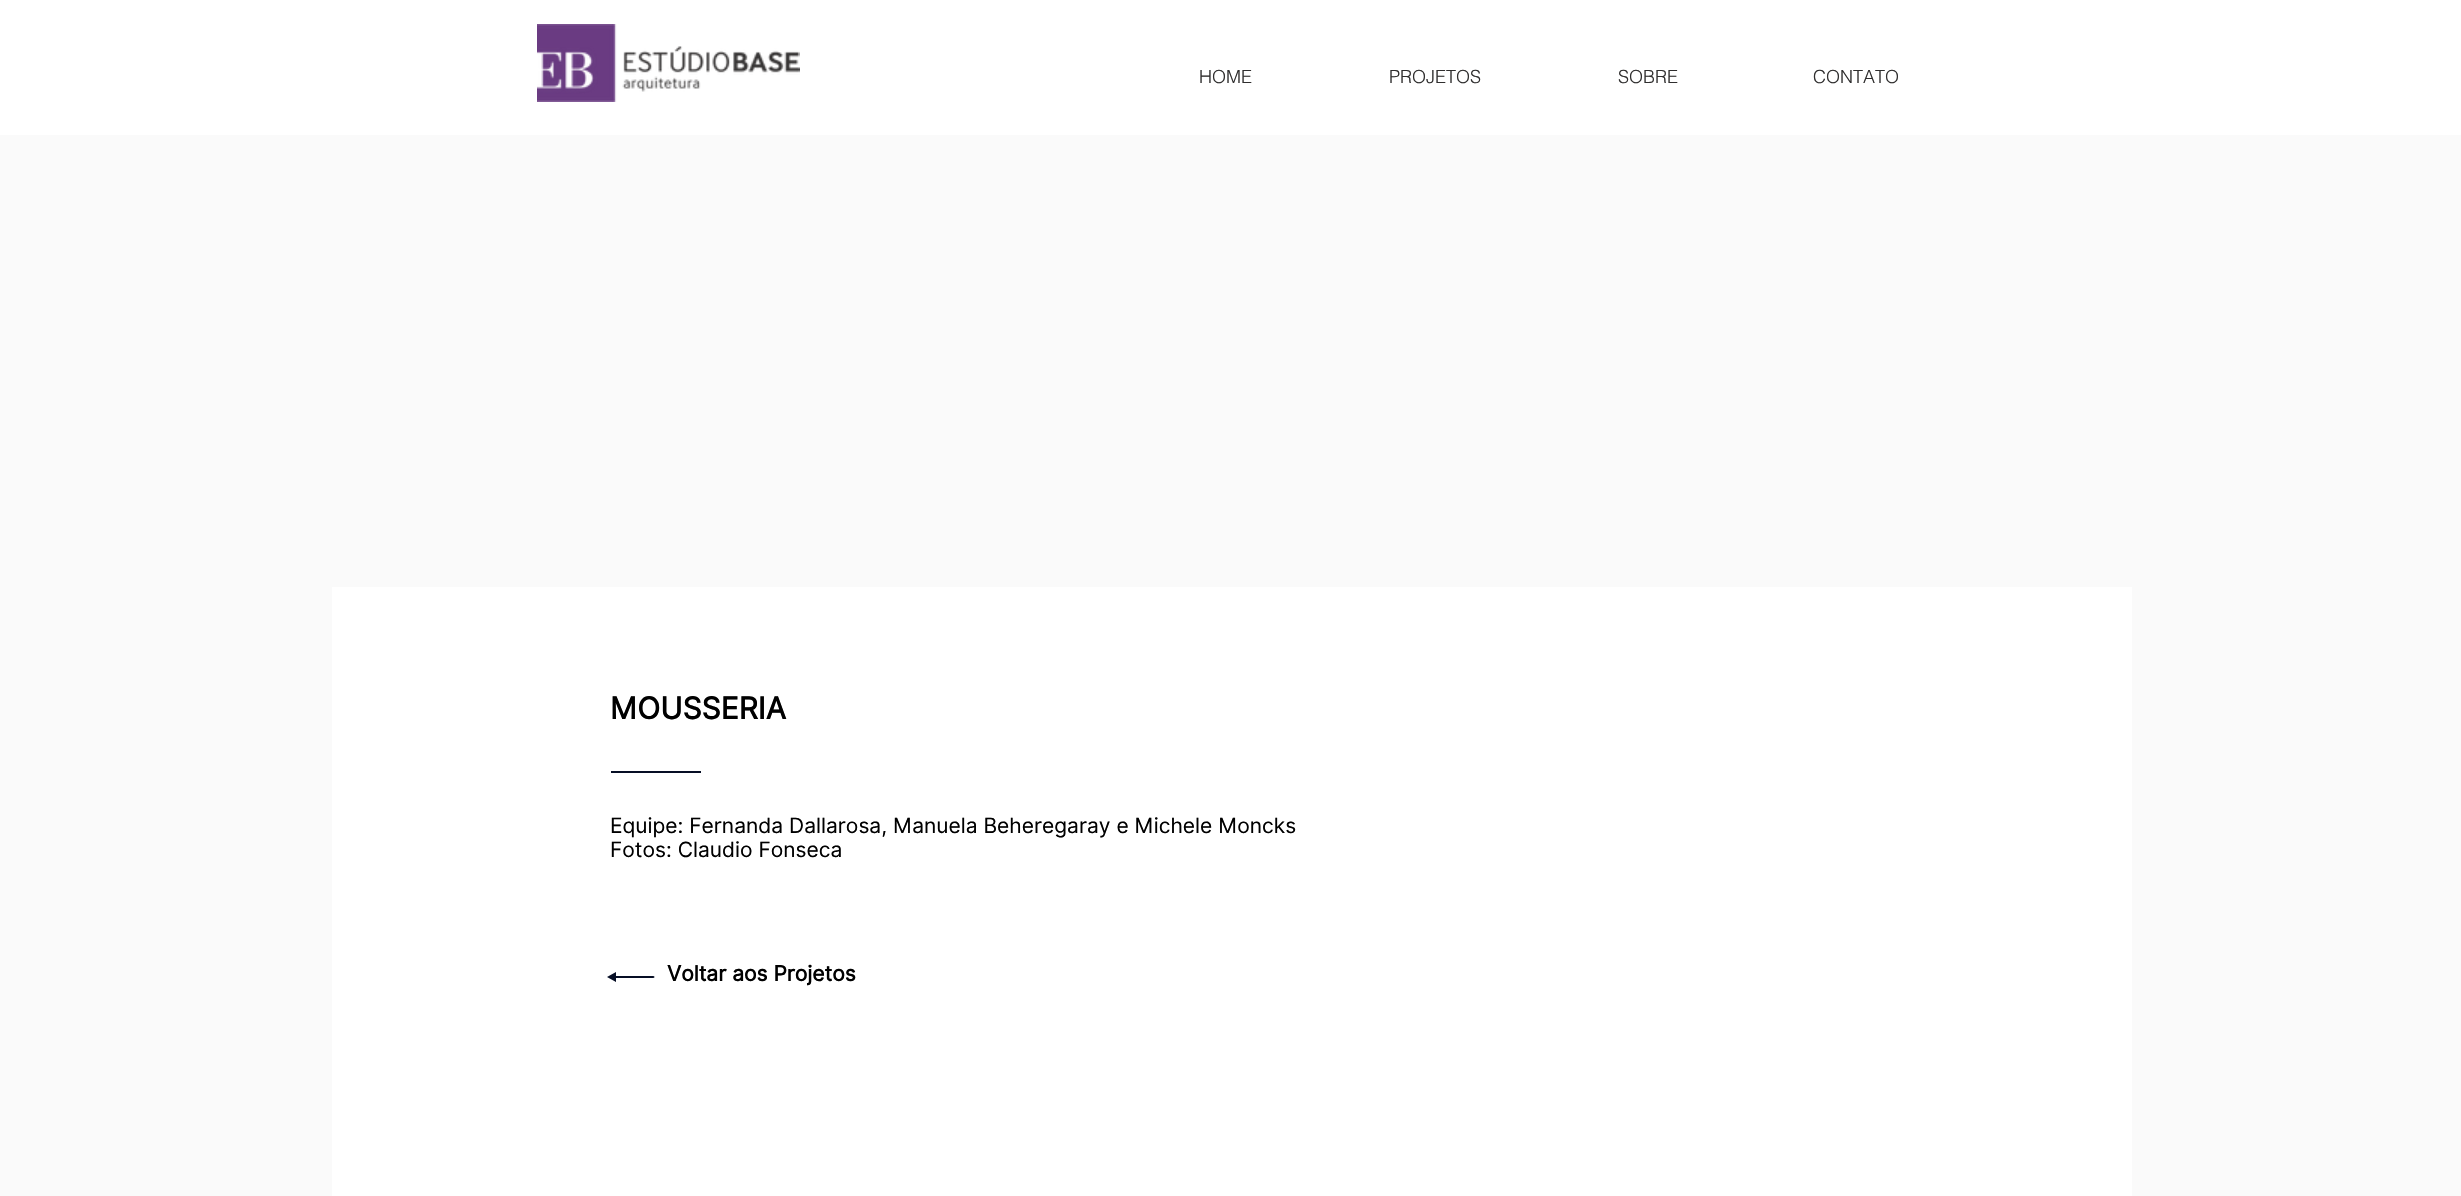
void draw(SkCanvas* canvas) {
	SkPaint fill;
	fill.setAntiAlias(true);
	auto makeFont = [&](const char* family, int weight, float size, bool italic = false) {
		SkFontStyle style(weight, SkFontStyle::kNormal_Width,
			italic ? SkFontStyle::kItalic_Slant : SkFontStyle::kUpright_Slant);
		SkFont result(fontMgr->matchFamilyStyle(family, style), size);
		result.setSubpixel(true);
		return result;
	};
	auto text = [&](const char* s, float x, float y, const SkFont& font) {
		canvas->drawString(s, x, y, font, fill);
	};
	auto box = [&](float l, float t, float r, float b) {
		canvas->drawRect(SkRect::MakeLTRB(l, t, r, b), fill);
	};
	auto picture = [&](const char* path, float l, float t, float r, float b) {
		auto image = SkImages::DeferredFromEncodedData(SkData::MakeFromFileName(path));
		canvas->drawImageRect(image, SkRect::MakeLTRB(l, t, r, b), SkSamplingOptions());
	};
	canvas->clear(0xFFFAFAFA);
	fill.setColor(0xFFFFFFFF);
	box(0, 0, 2461, 135);
	picture("image0.png", 537, 24, 800, 102);
	box(332, 587, 2132, 1196);
	fill.setColor(0xFF060E25);
	box(611, 771, 701, 773);
	canvas->drawPath(SkPathBuilder().moveTo(653, 976).lineTo(616, 976).lineTo(616, 972).lineTo(607, 977).lineTo(616, 982).lineTo(616, 978).lineTo(653, 978).cubicTo(655, 978, 655, 976, 653, 976).close().detach(), fill);
	auto font1 = makeFont("helvetica", 300, 18);
	fill.setColor(0xFF2F2E2E);
	text("HOME", 1199, 83, font1);
	text("PROJETOS", 1389, 83, font1);
	text("SOBRE", 1618, 83, font1);
	text("CONTATO", 1813, 83, font1);
	auto font2 = makeFont("Inter", 700, 30);
	fill.setColor(0xFF000000);
	text("MOUSSERIA", 610, 719, font2);
	auto font3 = makeFont("Inter", 400, 21);
	text("Equipe: Fernanda Dallarosa, Manuela Beheregaray e Michele Moncks", 610, 833, font3);
	text("Fotos: Claudio Fonseca", 610, 857, font3);
	auto font4 = makeFont("Inter", 700, 21);
	text("Voltar aos Projetos", 667, 981, font4);
}
